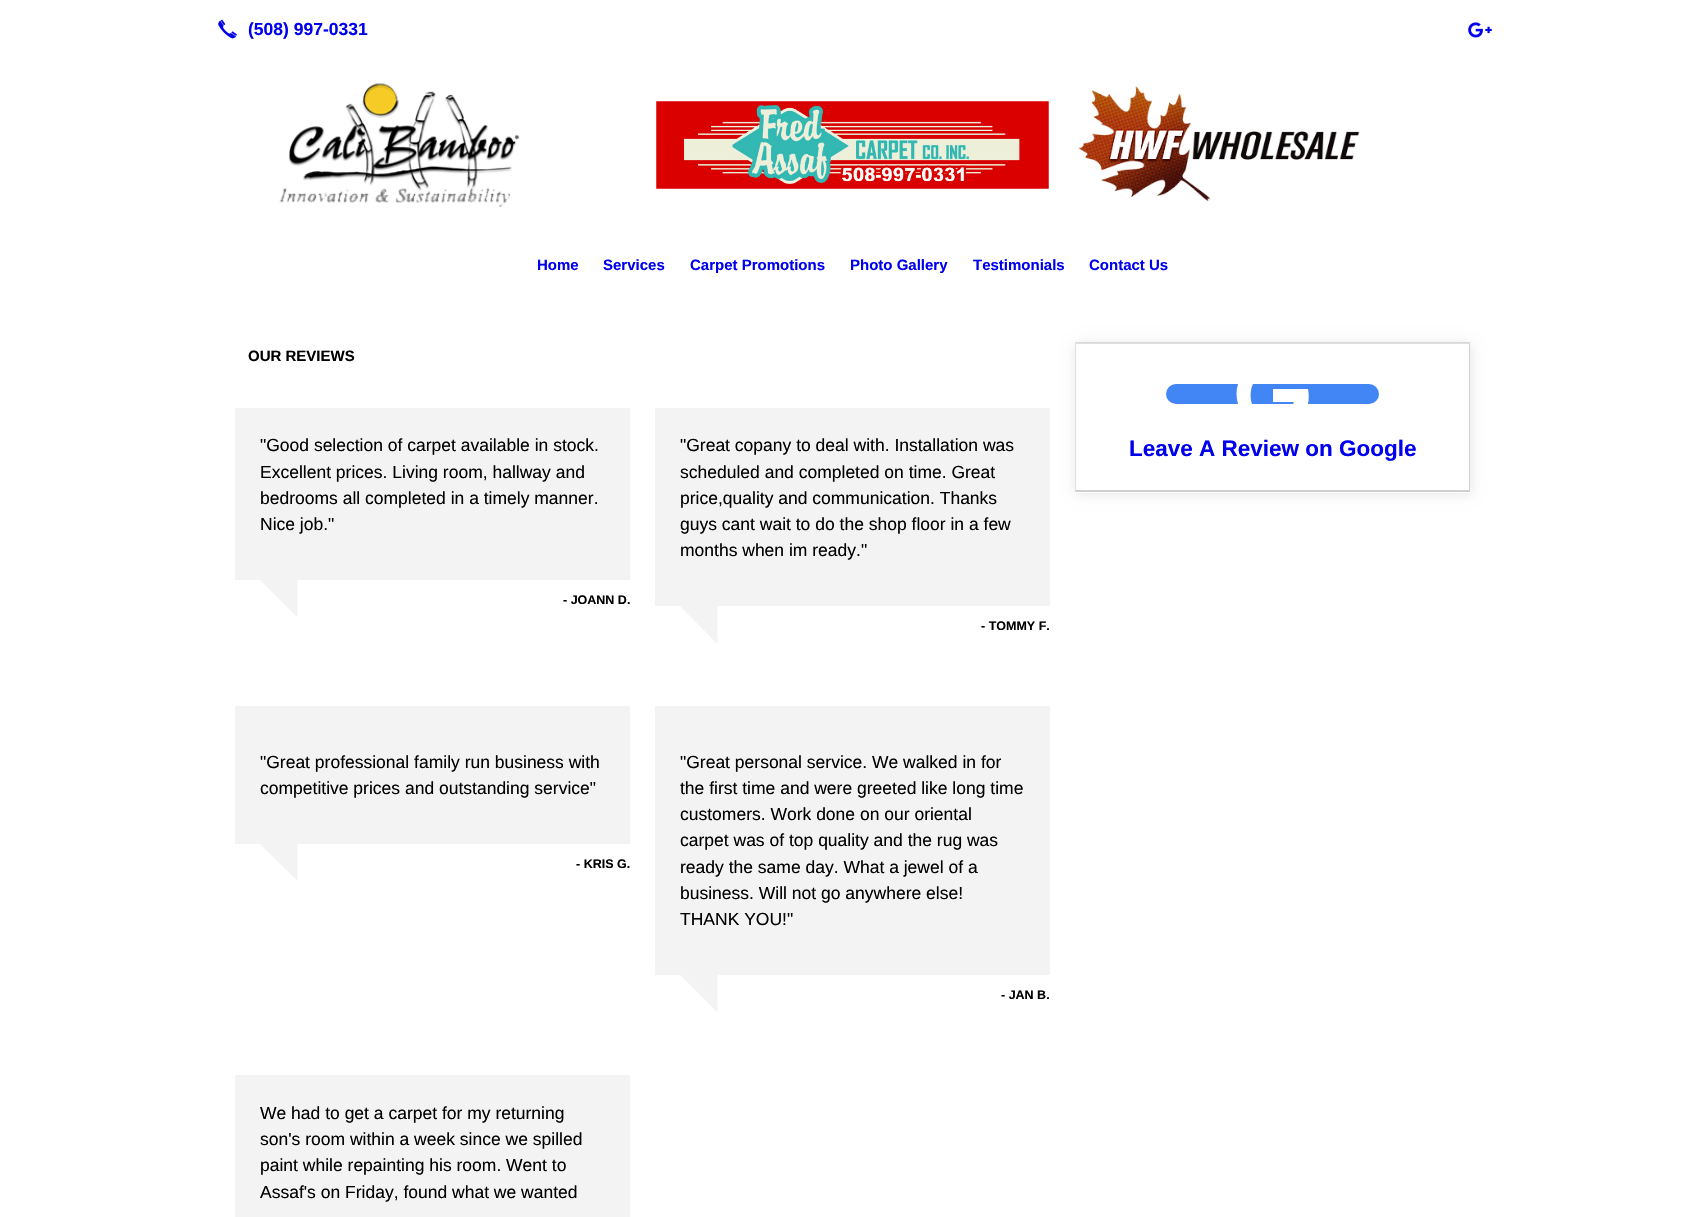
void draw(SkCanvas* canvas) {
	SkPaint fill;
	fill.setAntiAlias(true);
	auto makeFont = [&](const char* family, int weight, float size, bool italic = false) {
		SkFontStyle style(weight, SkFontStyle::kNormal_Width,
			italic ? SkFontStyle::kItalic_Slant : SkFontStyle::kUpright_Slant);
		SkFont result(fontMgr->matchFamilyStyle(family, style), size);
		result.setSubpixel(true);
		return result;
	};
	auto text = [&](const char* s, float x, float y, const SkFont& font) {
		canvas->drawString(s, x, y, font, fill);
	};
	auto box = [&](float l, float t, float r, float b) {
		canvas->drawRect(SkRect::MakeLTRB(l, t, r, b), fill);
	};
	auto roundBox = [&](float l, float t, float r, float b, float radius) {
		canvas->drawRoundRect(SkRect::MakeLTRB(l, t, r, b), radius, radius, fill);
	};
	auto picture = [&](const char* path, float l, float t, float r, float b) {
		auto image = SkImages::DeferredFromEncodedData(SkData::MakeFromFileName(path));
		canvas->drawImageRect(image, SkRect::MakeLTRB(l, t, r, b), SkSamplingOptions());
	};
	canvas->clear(0xFFFFFFFF);
	picture("image0.png", 218, 19, 237, 39);
	picture("image1.png", 1468, 22, 1492, 38);
	picture("image2.png", 279, 83, 520, 207);
	picture("image3.png", 656, 101, 1049, 189);
	picture("image4.png", 1078, 86, 1360, 201);
	fill.setColor(0xFFF3F3F3);
	box(235, 408, 630, 580);
	canvas->drawPath(SkPathBuilder().moveTo(297.5f, 580).lineTo(297.5f, 617.5f).lineTo(260, 580).close().detach(), fill);
	box(655, 408, 1050, 606);
	canvas->drawPath(SkPathBuilder().moveTo(717.5f, 606).lineTo(717.5f, 644).lineTo(680, 606).close().detach(), fill);
	box(235, 706, 630, 844);
	canvas->drawPath(SkPathBuilder().moveTo(297.5f, 844).lineTo(297.5f, 881).lineTo(260, 844).close().detach(), fill);
	box(655, 706, 1050, 975);
	canvas->drawPath(SkPathBuilder().moveTo(717.5f, 975).lineTo(717.5f, 1012.5f).lineTo(680, 975).close().detach(), fill);
	box(235, 1075, 630, 1217);
	canvas->save();
	canvas->clipPath(SkPathBuilder(SkPathFillType::kEvenOdd).moveTo(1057, 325).lineTo(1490, 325).lineTo(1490, 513).lineTo(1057, 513).close().moveTo(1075, 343).lineTo(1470, 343).lineTo(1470, 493).lineTo(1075, 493).close().detach(), true);
	fill.setColor(0x1A000000);
	fill.setMaskFilter(SkMaskFilter::MakeBlur(kNormal_SkBlurStyle, 6));
	canvas->drawRect(SkRect::MakeLTRB(1076, 344, 1471, 494), fill);
	fill.setMaskFilter(nullptr);
	canvas->restore();
	fill.setColor(0x4D969696);
	canvas->drawPath(SkPathBuilder().moveTo(1075, 342).lineTo(1470, 342).lineTo(1469, 344).lineTo(1076, 344).close().detach(), fill);
	fill.setColor(0x4D646464);
	canvas->drawPath(SkPathBuilder().moveTo(1470, 342).lineTo(1470, 492).lineTo(1469, 490).lineTo(1469, 344).close().detach(), fill);
	canvas->drawPath(SkPathBuilder().moveTo(1470, 492).lineTo(1075, 492).lineTo(1076, 490).lineTo(1469, 490).close().detach(), fill);
	fill.setColor(0x4D969696);
	canvas->drawPath(SkPathBuilder().moveTo(1075, 492).lineTo(1075, 342).lineTo(1076, 344).lineTo(1076, 490).close().detach(), fill);
	fill.setColor(0xFF4285F4);
	roundBox(1166, 384, 1379, 404, 10);
	fill.setColor(0xFFFFFFFF);
	canvas->drawPath(SkPathBuilder(SkPathFillType::kEvenOdd).moveTo(1273, 389).lineTo(1308, 389).cubicTo(1309, 394, 1309, 399, 1308, 404).lineTo(1293, 404).lineTo(1294, 402).lineTo(1273, 402).close().moveTo(1252, 404).cubicTo(1250, 398, 1250, 390, 1253, 384).lineTo(1238, 384).cubicTo(1236, 390, 1236, 397, 1238, 404).close().detach(), fill);
	auto font1 = makeFont("Liberation Sans", 700, 17.5f);
	fill.setColor(0xFF0000EE);
	text("(508) 997-0331", 248, 35, font1);
	auto font2 = makeFont("Liberation Sans", 700, 15);
	text("Home", 537, 270, font2);
	text("Services", 603, 270, font2);
	text("Carpet Promotions", 690, 270, font2);
	text("Photo Gallery", 850, 270, font2);
	text("Testimonials", 973, 270, font2);
	text("Contact Us", 1089, 270, font2);
	fill.setColor(0xFF000000);
	text("OUR REVIEWS", 248, 361, font2);
	auto font3 = makeFont("Liberation Sans", 400, 17.5f);
	text("\"Good selection of carpet available in stock.", 260, 451, font3);
	text("Excellent prices. Living room, hallway and", 260, 478, font3);
	text("bedrooms all completed in a timely manner.", 260, 504, font3);
	text("Nice job.\"", 260, 530, font3);
	auto font4 = makeFont("Liberation Sans", 700, 12.5f);
	text("- JOANN D.", 563, 604, font4);
	text("\"Great copany to deal with. Installation was", 680, 451, font3);
	text("scheduled and completed on time. Great", 680, 478, font3);
	text("price,quality and communication. Thanks", 680, 504, font3);
	text("guys cant wait to do the shop floor in a few", 680, 530, font3);
	text("months when im ready.\"", 680, 556, font3);
	text("- TOMMY F.", 981, 630, font4);
	text("\"Great professional family run business with", 260, 768, font3);
	text("competitive prices and outstanding service\"", 260, 794, font3);
	text("- KRIS G.", 576, 868, font4);
	text("\"Great personal service. We walked in for", 680, 768, font3);
	text("the first time and were greeted like long time", 680, 794, font3);
	text("customers. Work done on our oriental", 680, 820, font3);
	text("carpet was of top quality and the rug was", 680, 846, font3);
	text("ready the same day. What a jewel of a", 680, 873, font3);
	text("business. Will not go anywhere else!", 680, 899, font3);
	text("THANK YOU!\"", 680, 925, font3);
	text("- JAN B.", 1001, 999, font4);
	text("We had to get a carpet for my returning", 260, 1119, font3);
	text("son's room within a week since we spilled", 260, 1145, font3);
	text("paint while repainting his room. Went to", 260, 1171, font3);
	text("Assaf's on Friday, found what we wanted", 260, 1198, font3);
	auto font5 = makeFont("Liberation Sans", 700, 22.5f);
	fill.setColor(0xFF0000EE);
	text("Leave A Review on Google", 1129, 456, font5);
}
